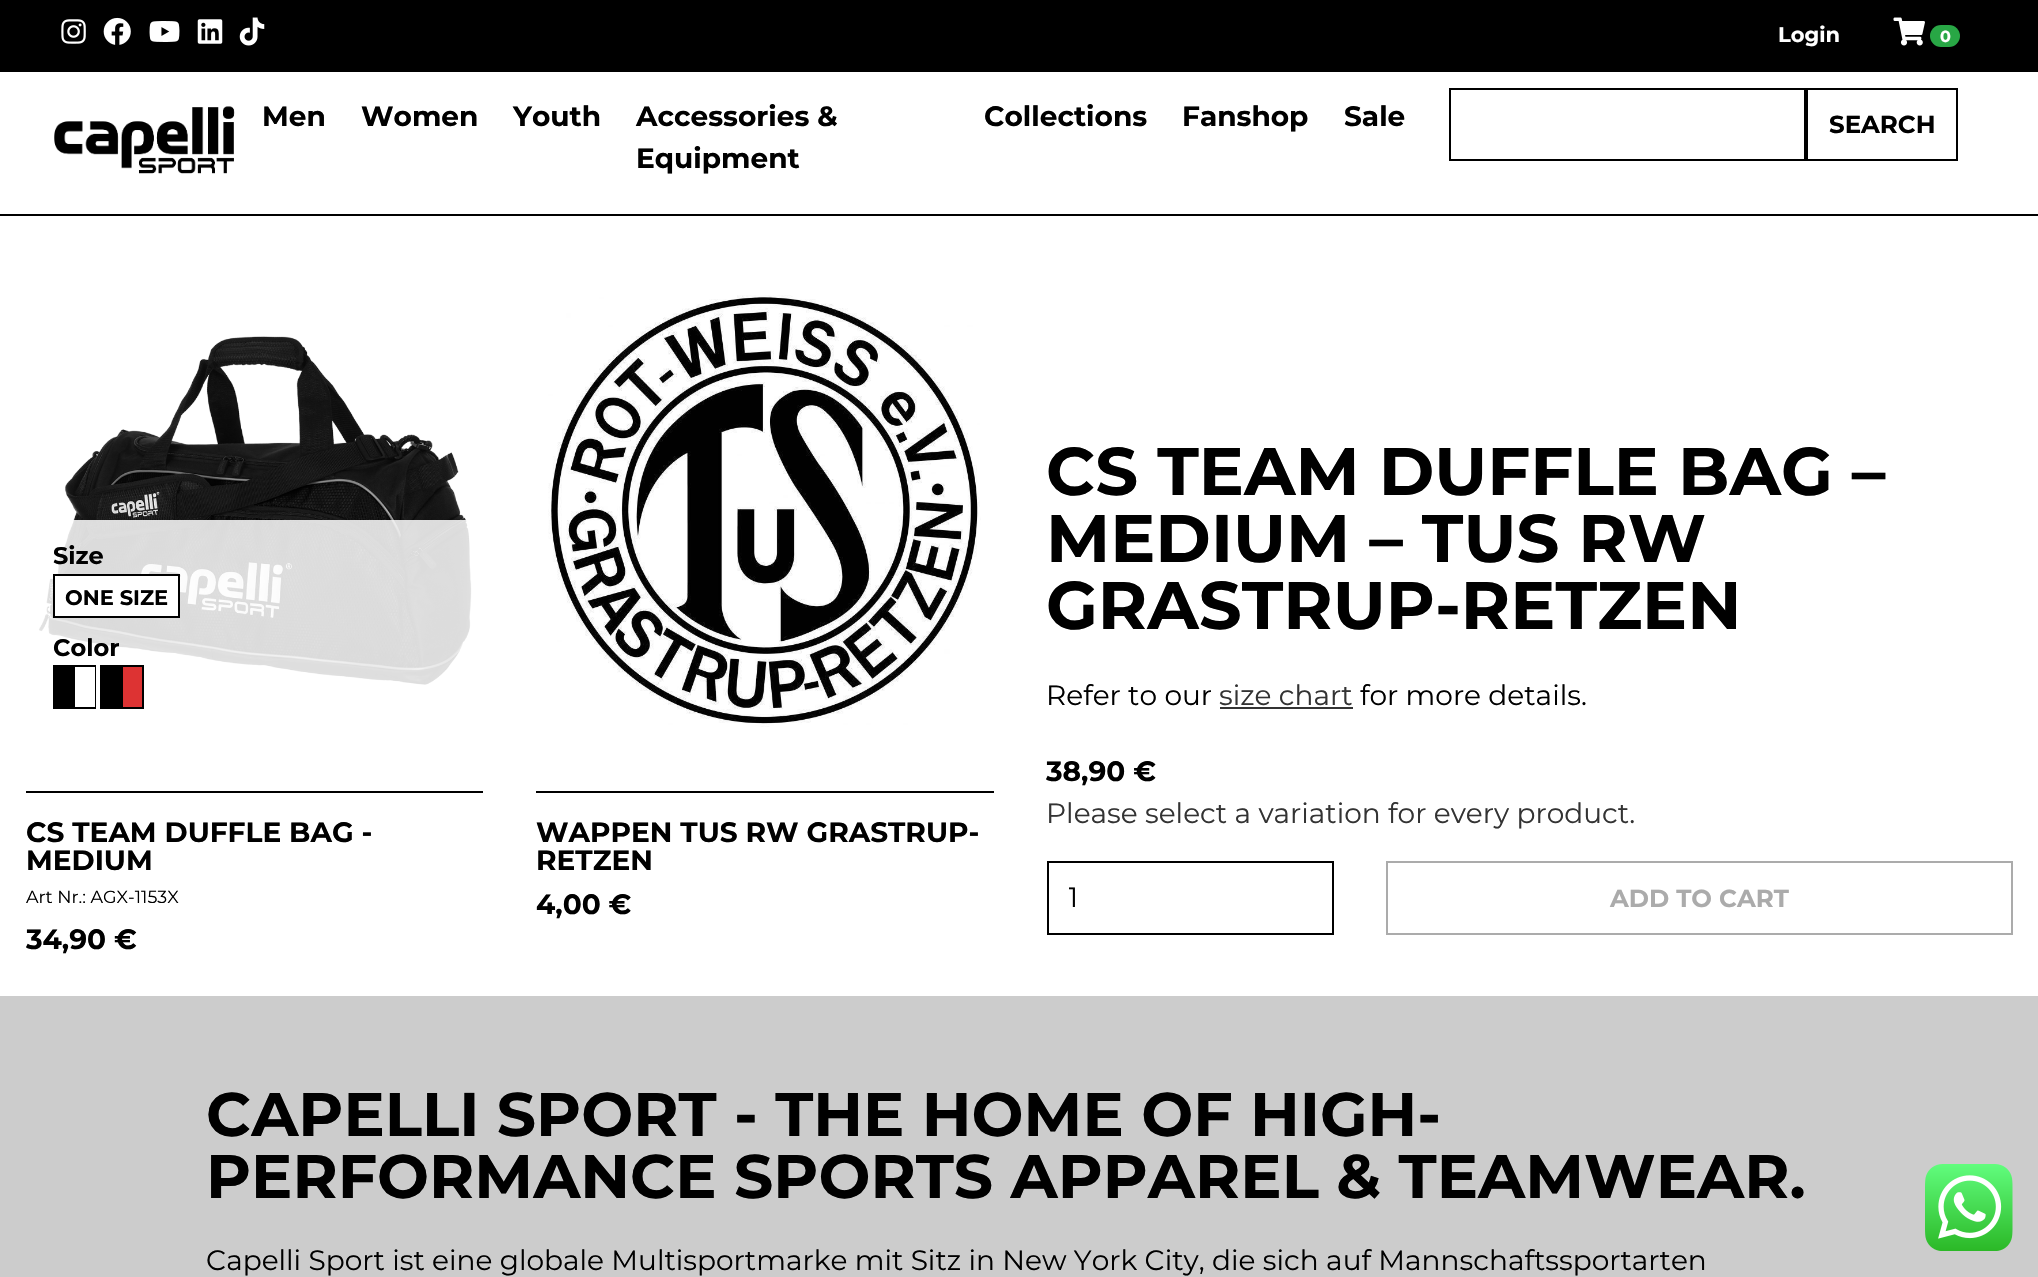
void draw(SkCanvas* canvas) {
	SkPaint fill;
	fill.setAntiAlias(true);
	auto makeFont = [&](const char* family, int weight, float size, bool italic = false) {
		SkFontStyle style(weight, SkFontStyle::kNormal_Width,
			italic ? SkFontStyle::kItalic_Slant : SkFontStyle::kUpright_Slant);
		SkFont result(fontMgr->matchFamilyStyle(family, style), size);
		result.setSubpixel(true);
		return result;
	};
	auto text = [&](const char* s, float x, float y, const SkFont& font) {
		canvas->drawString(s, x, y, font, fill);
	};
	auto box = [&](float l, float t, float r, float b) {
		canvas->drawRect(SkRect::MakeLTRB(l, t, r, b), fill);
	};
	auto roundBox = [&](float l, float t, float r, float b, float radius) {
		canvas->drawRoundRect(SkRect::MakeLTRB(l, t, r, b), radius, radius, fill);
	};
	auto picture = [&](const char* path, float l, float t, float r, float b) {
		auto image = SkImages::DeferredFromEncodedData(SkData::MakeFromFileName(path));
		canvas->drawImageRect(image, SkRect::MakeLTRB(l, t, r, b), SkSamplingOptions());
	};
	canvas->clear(0xFFFFFFFF);
	fill.setColor(0xFF000000);
	box(0, 0, 2038, 72);
	picture("image0.png", 61, 19, 86, 44);
	picture("image1.png", 103, 17, 131, 45);
	picture("image2.png", 149, 21, 180, 42);
	picture("image3.png", 197, 19, 223, 44);
	picture("image4.png", 239, 17, 265, 46);
	picture("image5.png", 1893, 17, 1925, 46);
	fill.setColor(0xFF28A745);
	roundBox(1930, 25, 1960, 47, 11);
	fill.setColor(0xFF000000);
	box(0, 214, 2038, 216);
	picture("image6.png", 54, 106, 235, 174);
	fill.setStyle(SkPaint::kStroke_Style);
	fill.setStrokeWidth(2);
	canvas->drawRect(SkRect::MakeLTRB(1450, 89, 1805, 160), fill);
	canvas->drawRect(SkRect::MakeLTRB(1807, 89, 1957, 160), fill);
	picture("image7.png", 38, 336, 472, 685);
	fill.setStyle(SkPaint::kFill_Style);
	fill.setColor(0xD9FFFFFF);
	box(38, 520, 472, 685);
	fill.setColor(0xFFFFFFFF);
	canvas->drawRect(SkRect::MakeLTRB(54, 575, 179, 617), fill);
	fill.setStyle(SkPaint::kStroke_Style);
	fill.setColor(0xFF000000);
	canvas->drawRect(SkRect::MakeLTRB(54, 575, 179, 617), fill);
	fill.setStyle(SkPaint::kFill_Style);
	box(53, 665, 96, 709);
	fill.setColor(0xFFFFFFFF);
	box(75, 667, 95, 707);
	fill.setColor(0xFF000000);
	box(100, 665, 144, 709);
	fill.setColor(0xFFDD3333);
	box(123, 667, 142, 707);
	fill.setColor(0xFF000000);
	box(26, 791, 483, 793);
	picture("image8.png", 548, 295, 981, 727);
	box(536, 791, 994, 793);
	fill.setColor(0xFF333333);
	box(1220, 707, 1353, 709);
	fill.setStyle(SkPaint::kStroke_Style);
	fill.setColor(0xFF000000);
	canvas->drawRect(SkRect::MakeLTRB(1048, 862, 1333, 934), fill);
	fill.setColor(0xFFABABAB);
	canvas->drawRect(SkRect::MakeLTRB(1387, 862, 2012, 934), fill);
	fill.setStyle(SkPaint::kFill_Style);
	fill.setColor(0xFFCCCCCC);
	box(0, 996, 2038, 1277);
	picture("image9.png", 1925, 1164, 2013, 1251);
	auto font1 = makeFont("Montserrat", 700, 21);
	fill.setColor(0xFFFFFFFF);
	text("Login", 1778, 42, font1);
	auto font2 = makeFont("Montserrat", 700, 16);
	text("0", 1940, 42, font2);
	auto font3 = makeFont("Montserrat", 700, 28);
	fill.setColor(0xFF000000);
	text("Men", 262, 126, font3);
	text("Women", 361, 126, font3);
	text("Youth", 513, 126, font3);
	text("Accessories &", 636, 126, font3);
	text("Equipment", 636, 168, font3);
	text("Collections", 984, 126, font3);
	text("Fanshop", 1182, 126, font3);
	text("Sale", 1344, 126, font3);
	auto font4 = makeFont("Montserrat", 700, 24.5f);
	text("SEARCH", 1829, 133, font4);
	auto font5 = makeFont("Montserrat", 700, 24);
	text("Size", 53, 564, font5);
	text("ONE SIZE", 65, 605, font1);
	text("Color", 53, 656, font5);
	text("CS TEAM DUFFLE BAG -", 26, 842, font3);
	text("MEDIUM", 26, 870, font3);
	auto font6 = makeFont("Montserrat", 400, 17.5f);
	text("Art Nr.: AGX-1153X", 26, 903, font6);
	text("34,90 €", 26, 949, font3);
	text("WAPPEN TUS RW GRASTRUP-", 536, 842, font3);
	text("RETZEN", 536, 870, font3);
	text("4,00 €", 536, 914, font3);
	auto font7 = makeFont("Montserrat", 700, 67.25f);
	text("CS TEAM DUFFLE BAG –", 1046, 495, font7);
	text("MEDIUM – TUS RW", 1046, 562, font7);
	text("GRASTRUP-RETZEN", 1046, 629, font7);
	auto font8 = makeFont("Montserrat", 400, 28);
	text("Refer to our", 1046, 705, font8);
	fill.setColor(0xFF333333);
	text("size chart", 1219, 705, font8);
	fill.setColor(0xFF000000);
	text("for more details.", 1360, 705, font8);
	text("38,90 €", 1046, 781, font3);
	fill.setColor(0xFF333333);
	text("Please select a variation for every product.", 1046, 823, font8);
	canvas->save();
	canvas->clipRect(SkRect::MakeLTRB(1069, 877, 1285, 919));
	fill.setColor(0xFF000000);
	text("1", 1068, 907, font8);
	canvas->restore();
	fill.setColor(0xFFABABAB);
	text("ADD TO CART", 1610, 907, font4);
	auto font9 = makeFont("Montserrat", 700, 61.6f);
	fill.setColor(0xFF000000);
	text("CAPELLI SPORT - THE HOME OF HIGH-", 206, 1136, font9);
	text("PERFORMANCE SPORTS APPAREL & TEAMWEAR.", 206, 1198, font9);
	text("Capelli Sport ist eine globale Multisportmarke mit Sitz in New York City, die sich auf Mannschaftssportarten", 206, 1270, font8);
}
